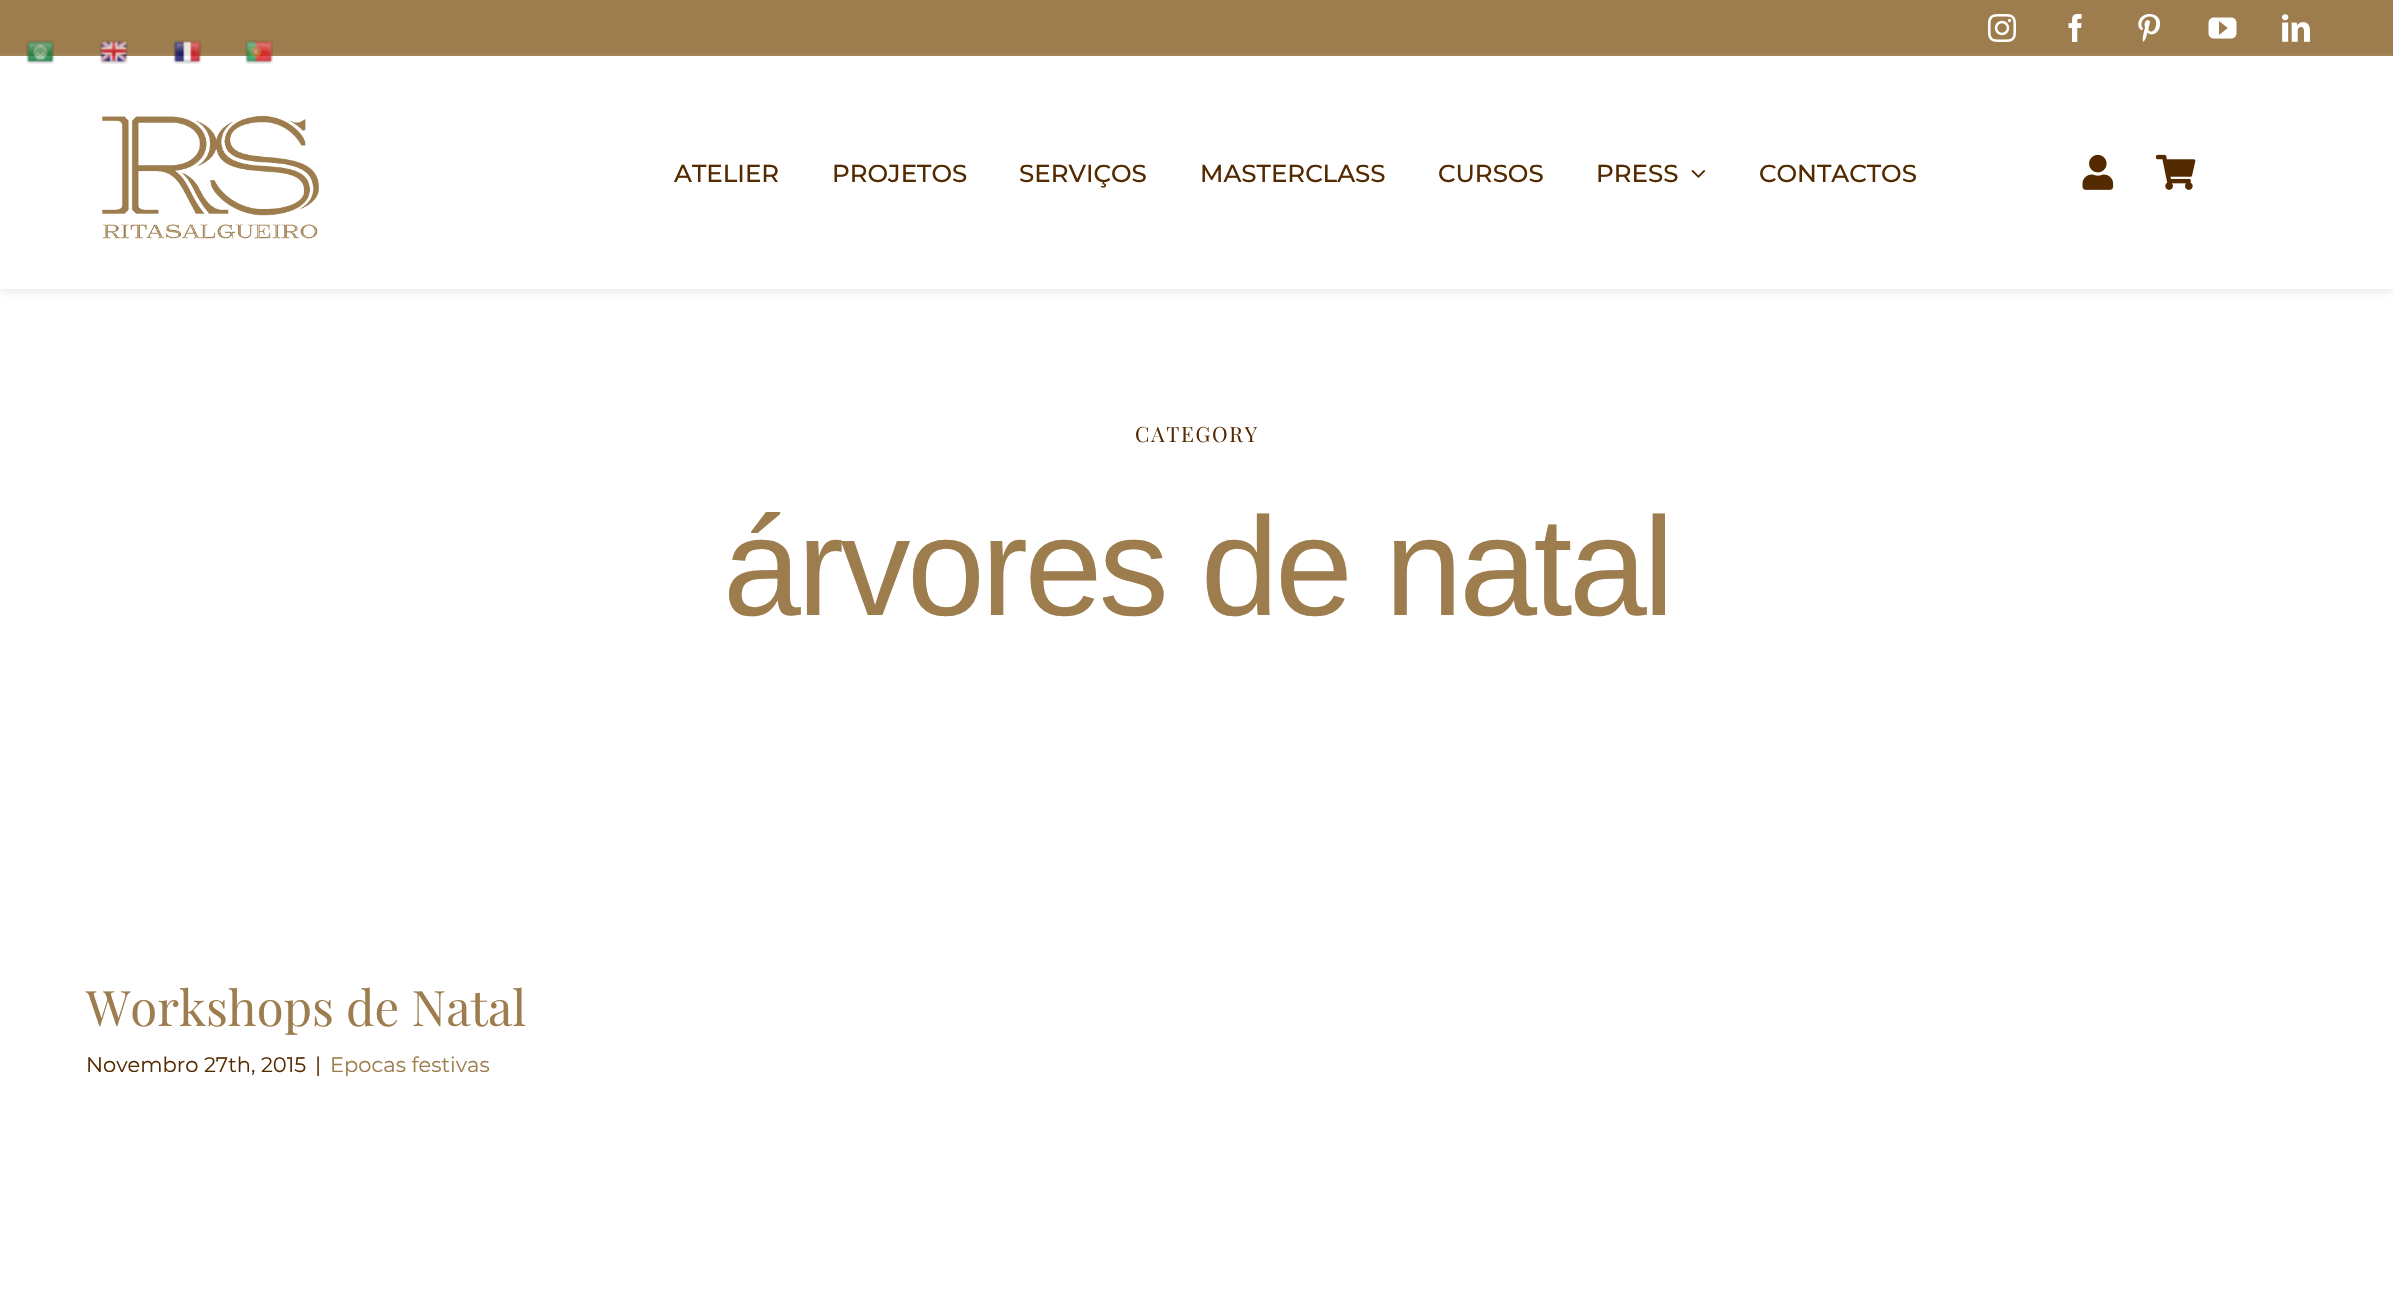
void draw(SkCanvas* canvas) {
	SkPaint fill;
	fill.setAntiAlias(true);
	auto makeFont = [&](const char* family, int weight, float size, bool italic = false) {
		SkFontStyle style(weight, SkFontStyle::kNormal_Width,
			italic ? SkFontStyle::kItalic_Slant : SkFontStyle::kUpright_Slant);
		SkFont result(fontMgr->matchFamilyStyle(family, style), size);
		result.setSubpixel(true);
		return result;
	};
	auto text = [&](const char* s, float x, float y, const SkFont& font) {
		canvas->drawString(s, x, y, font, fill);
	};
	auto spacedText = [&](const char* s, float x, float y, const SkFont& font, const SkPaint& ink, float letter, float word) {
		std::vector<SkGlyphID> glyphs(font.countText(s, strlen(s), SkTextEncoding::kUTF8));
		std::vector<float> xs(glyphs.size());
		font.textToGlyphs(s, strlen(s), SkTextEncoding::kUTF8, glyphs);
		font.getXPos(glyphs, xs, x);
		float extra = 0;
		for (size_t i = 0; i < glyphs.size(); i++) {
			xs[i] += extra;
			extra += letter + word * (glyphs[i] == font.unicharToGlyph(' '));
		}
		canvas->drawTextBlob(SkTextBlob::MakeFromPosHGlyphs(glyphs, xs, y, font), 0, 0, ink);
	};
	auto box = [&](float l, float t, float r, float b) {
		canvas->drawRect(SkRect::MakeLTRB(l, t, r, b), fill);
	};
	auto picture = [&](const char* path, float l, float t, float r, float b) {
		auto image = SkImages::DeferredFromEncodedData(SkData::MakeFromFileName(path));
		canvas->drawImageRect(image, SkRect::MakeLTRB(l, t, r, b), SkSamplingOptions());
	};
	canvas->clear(0xFFFFFFFF);
	fill.setColor(0xFF9D7D4D);
	box(0, 0, 2393, 56);
	canvas->save();
	canvas->clipPath(SkPathBuilder(SkPathFillType::kEvenOdd).moveTo(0, 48).lineTo(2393, 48).lineTo(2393, 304).lineTo(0, 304).close().moveTo(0, 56).lineTo(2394, 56).lineTo(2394, 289).lineTo(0, 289).close().detach(), true);
	fill.setColor(0xFFECECED);
	fill.setMaskFilter(SkMaskFilter::MakeBlur(kNormal_SkBlurStyle, 3.5f));
	canvas->drawRect(SkRect::MakeLTRB(0, 60, 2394, 292), fill);
	fill.setMaskFilter(nullptr);
	canvas->restore();
	picture("image0.png", 26, 40, 55, 64);
	picture("image1.png", 99, 40, 128, 64);
	picture("image2.png", 173, 40, 202, 64);
	picture("image3.png", 245, 40, 273, 64);
	picture("image4.png", 1988, 14, 2016, 42);
	picture("image5.png", 2068, 14, 2082, 42);
	picture("image6.png", 2138, 14, 2161, 42);
	picture("image7.png", 2208, 17, 2237, 39);
	picture("image8.png", 2282, 14, 2310, 42);
	picture("image9.png", 102, 115, 319, 239);
	picture("image10.png", 1691, 170, 1706, 178);
	picture("image11.png", 2082, 154, 2114, 190);
	picture("image12.png", 2156, 154, 2196, 190);
	auto font1 = makeFont("Montserrat", 500, 24.5f);
	fill.setColor(0xFF542A00);
	text("ATELIER", 674, 182, font1);
	text("PROJETOS", 832, 182, font1);
	text("SERVIÇOS", 1019, 182, font1);
	text("MASTERCLASS", 1200, 182, font1);
	text("CURSOS", 1438, 182, font1);
	text("PRESS", 1596, 182, font1);
	text("CONTACTOS", 1759, 182, font1);
	auto font2 = makeFont("Playfair Display", 400, 21);
	spacedText("CATEGORY", 1135, 442, font2, fill, 1.75f, 0);
	auto font3 = makeFont("Liberation Sans", 400, 140);
	fill.setColor(0xFF9D7D4D);
	spacedText("árvores de natal", 723, 615, font3, fill, -3.5f, 0);
	auto font4 = makeFont("Playfair Display", 400, 49);
	text("Workshops de Natal", 86, 1026, font4);
	auto font5 = makeFont("Montserrat", 400, 21);
	fill.setColor(0xFF542A00);
	text("Novembro 27th, 2015", 86, 1072, font5);
	text("|", 315, 1072, font5);
	fill.setColor(0xFF9D7D4D);
	text("Epocas festivas", 330, 1072, font5);
}
